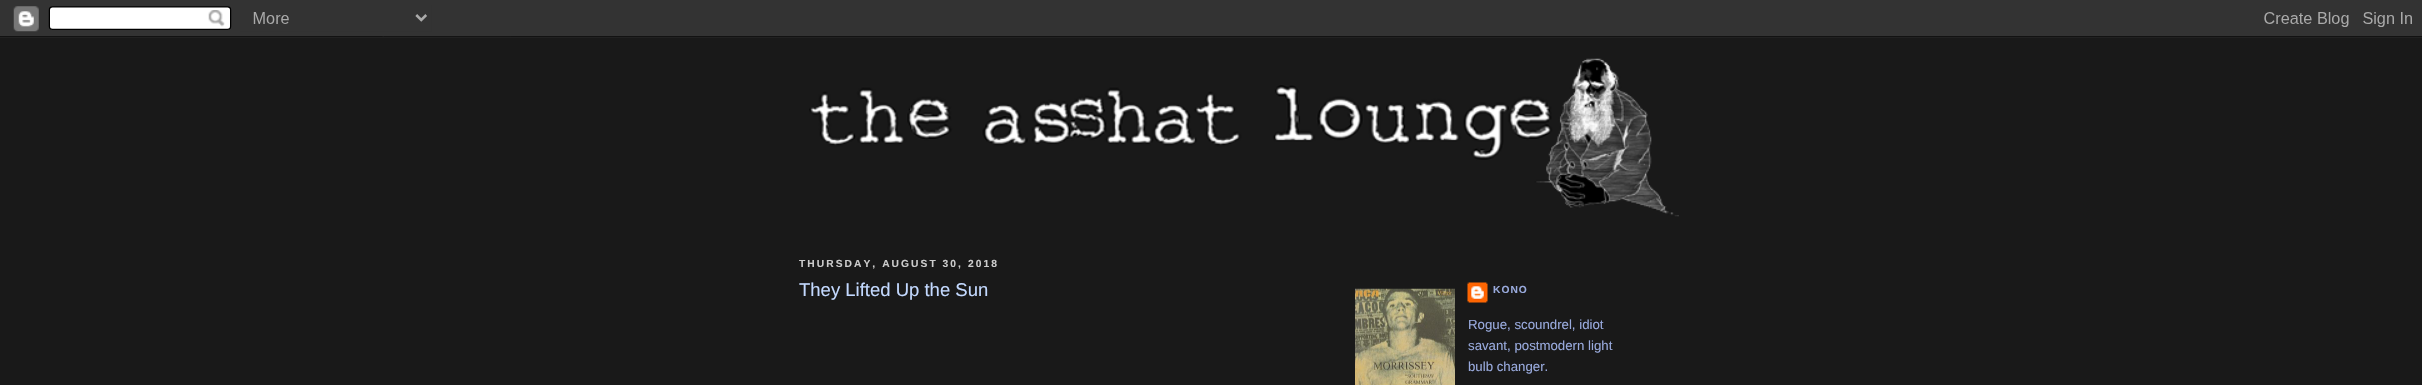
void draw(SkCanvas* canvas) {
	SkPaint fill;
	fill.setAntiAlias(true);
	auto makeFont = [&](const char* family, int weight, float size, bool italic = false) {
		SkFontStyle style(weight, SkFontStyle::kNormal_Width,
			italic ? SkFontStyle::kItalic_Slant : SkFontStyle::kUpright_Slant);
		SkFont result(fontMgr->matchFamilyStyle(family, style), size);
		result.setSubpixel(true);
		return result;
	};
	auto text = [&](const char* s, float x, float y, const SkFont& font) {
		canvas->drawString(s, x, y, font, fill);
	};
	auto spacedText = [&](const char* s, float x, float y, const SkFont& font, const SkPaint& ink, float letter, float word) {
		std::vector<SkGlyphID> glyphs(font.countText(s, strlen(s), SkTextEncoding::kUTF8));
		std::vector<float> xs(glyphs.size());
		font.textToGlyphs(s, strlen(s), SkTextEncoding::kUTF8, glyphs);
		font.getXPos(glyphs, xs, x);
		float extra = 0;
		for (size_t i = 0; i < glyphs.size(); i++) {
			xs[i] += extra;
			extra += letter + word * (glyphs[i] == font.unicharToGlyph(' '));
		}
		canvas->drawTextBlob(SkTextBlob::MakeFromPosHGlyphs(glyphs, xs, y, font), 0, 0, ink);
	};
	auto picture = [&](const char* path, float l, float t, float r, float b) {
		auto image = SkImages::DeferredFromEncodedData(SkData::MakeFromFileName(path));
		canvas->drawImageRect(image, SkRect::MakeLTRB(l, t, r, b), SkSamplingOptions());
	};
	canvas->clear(0xFF191919);
	picture("image0.png", 0, 0, 2422, 38);
	picture("image1.png", 809, 58, 1679, 217);
	picture("image2.png", 1355, 288, 1455, 385);
	picture("image3.png", 1467, 282, 1488, 303);
	auto font1 = makeFont("Liberation Sans", 700, 10.25f);
	fill.setColor(0xFFCCCCCC);
	spacedText("THURSDAY, AUGUST 30, 2018", 799, 267, font1, fill, 2.05f, 0);
	auto font2 = makeFont("Liberation Sans", 400, 18.5f);
	fill.setColor(0xFFC3D9FF);
	text("They Lifted Up the Sun", 799, 296, font2);
	fill.setColor(0xFF99AADD);
	spacedText("KONO", 1493, 293, font1, fill, 1, 0);
	auto font3 = makeFont("Liberation Sans", 400, 13.25f);
	text("Rogue, scoundrel, idiot", 1468, 329, font3);
	text("savant, postmodern light", 1468, 350, font3);
	text("bulb changer.", 1468, 371, font3);
}
